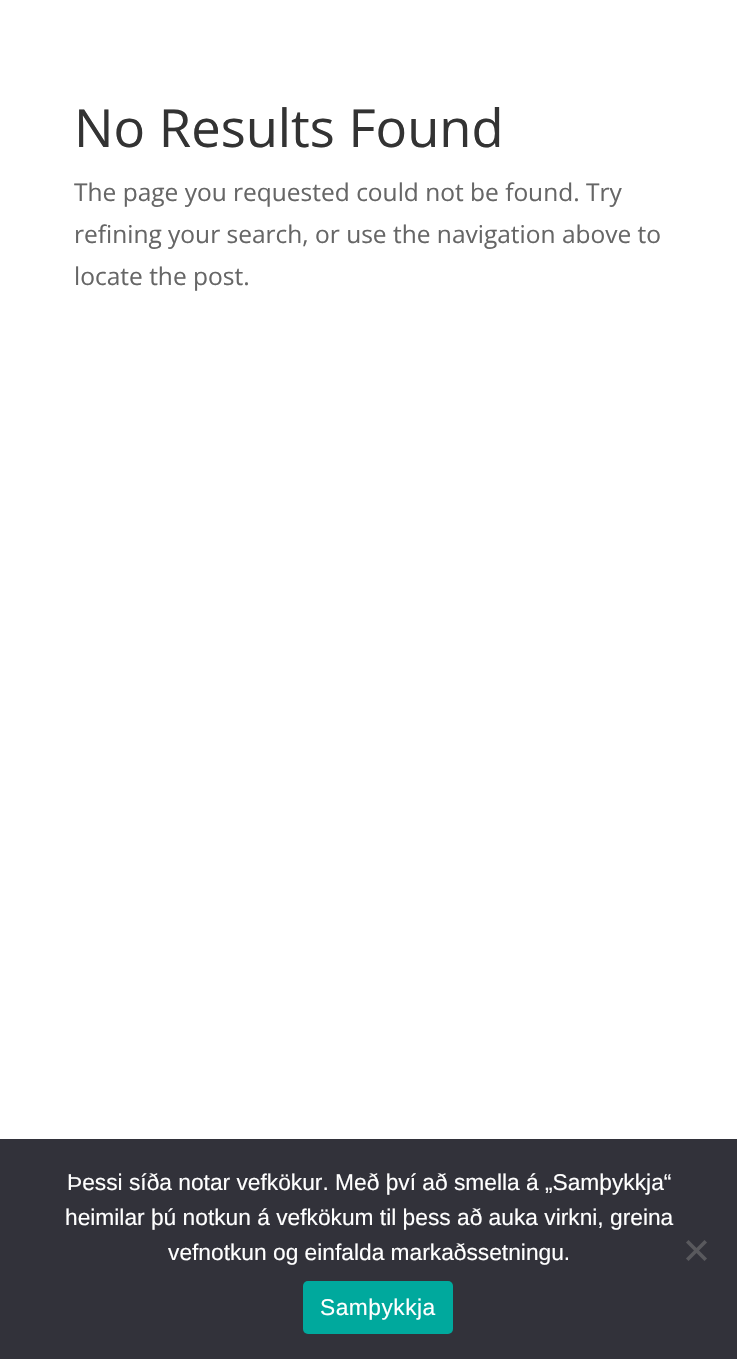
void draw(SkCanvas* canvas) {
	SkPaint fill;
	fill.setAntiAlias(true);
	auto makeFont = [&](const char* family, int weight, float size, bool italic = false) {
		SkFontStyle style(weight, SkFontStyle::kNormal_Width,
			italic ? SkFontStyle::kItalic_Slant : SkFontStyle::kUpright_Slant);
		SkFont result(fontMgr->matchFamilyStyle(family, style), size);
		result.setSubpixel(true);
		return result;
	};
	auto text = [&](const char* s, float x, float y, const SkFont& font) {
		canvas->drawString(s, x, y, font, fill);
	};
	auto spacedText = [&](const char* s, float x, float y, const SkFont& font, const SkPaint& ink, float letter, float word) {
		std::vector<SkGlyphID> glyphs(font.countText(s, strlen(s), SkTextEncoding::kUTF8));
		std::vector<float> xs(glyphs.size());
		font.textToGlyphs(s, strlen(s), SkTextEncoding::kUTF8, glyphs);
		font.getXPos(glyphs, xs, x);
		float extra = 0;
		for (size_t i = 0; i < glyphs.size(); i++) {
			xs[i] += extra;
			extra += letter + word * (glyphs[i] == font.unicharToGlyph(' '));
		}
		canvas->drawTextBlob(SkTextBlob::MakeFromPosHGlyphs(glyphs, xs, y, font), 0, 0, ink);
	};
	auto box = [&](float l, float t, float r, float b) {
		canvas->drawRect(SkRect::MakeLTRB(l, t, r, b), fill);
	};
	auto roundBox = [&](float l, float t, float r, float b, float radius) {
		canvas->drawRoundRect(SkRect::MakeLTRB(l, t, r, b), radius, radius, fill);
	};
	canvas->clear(0xFFFFFFFF);
	fill.setColor(0xFF32323A);
	box(0, 1139, 737, 1359);
	fill.setColor(0xFF59595D);
	canvas->drawPath(SkPathBuilder().moveTo(704.5f, 1240).lineTo(707, 1242.5f).lineTo(688.5f, 1261).lineTo(686, 1258.5f).close().detach(), fill);
	canvas->drawPath(SkPathBuilder().moveTo(686, 1242.5f).lineTo(688.5f, 1240).lineTo(707, 1258.5f).lineTo(704.5f, 1261).close().detach(), fill);
	fill.setColor(0xFF00A99D);
	roundBox(303, 1281, 453, 1334, 5);
	auto font1 = makeFont("Open Sans", 400, 52.5f);
	fill.setColor(0xFF333333);
	text("No Results Found", 74, 147, font1);
	auto font2 = makeFont("Open Sans", 400, 24.5f);
	fill.setColor(0xFF666666);
	text("The page you requested could not be found. Try", 74, 201, font2);
	text("refining your search, or use the navigation above to", 74, 243, font2);
	text("locate the post.", 74, 285, font2);
	auto font3 = makeFont("Liberation Sans", 400, 22.75f);
	fill.setColor(0xFFFFFFFF);
	text("Þessi síða notar vefkökur. Með því að smella á „Samþykkja“", 67, 1190, font3);
	text("heimilar þú notkun á vefkökum til þess að auka virkni, greina", 65, 1225, font3);
	text("vefnotkun og einfalda markaðssetningu.", 168, 1260, font3);
	spacedText("Samþykkja", 320, 1315, font3, fill, 0.5f, 0);
}
